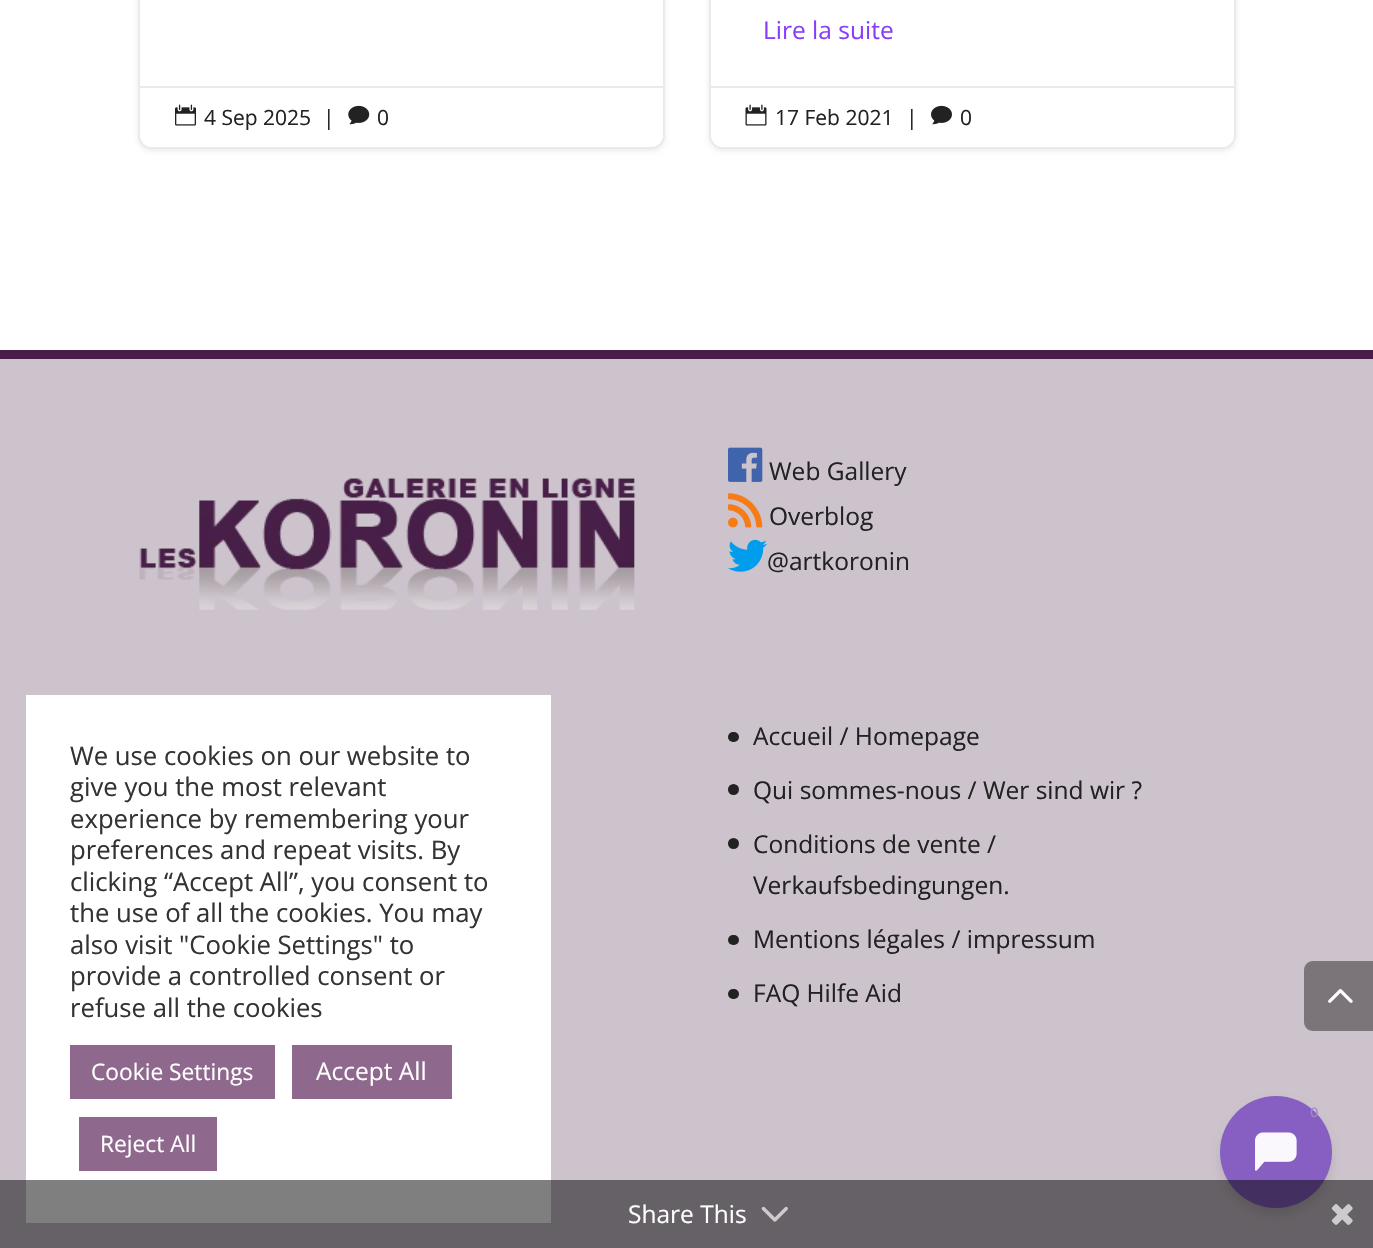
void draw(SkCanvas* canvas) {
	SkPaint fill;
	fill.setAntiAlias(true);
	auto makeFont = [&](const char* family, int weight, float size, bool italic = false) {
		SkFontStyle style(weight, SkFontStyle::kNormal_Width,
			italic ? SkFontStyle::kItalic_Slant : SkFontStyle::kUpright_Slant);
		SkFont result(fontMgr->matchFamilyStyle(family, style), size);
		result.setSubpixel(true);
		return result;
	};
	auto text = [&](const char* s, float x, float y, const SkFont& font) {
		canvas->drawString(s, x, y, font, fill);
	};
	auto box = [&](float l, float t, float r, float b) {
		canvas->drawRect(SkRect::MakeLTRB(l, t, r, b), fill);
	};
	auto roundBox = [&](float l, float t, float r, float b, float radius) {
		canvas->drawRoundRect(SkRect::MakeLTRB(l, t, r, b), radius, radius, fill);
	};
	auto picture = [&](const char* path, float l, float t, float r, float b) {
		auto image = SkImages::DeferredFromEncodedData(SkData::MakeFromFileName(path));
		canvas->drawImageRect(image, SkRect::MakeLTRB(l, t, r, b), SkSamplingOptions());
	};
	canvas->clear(0xFFFFFFFF);
	fill.setColor(0x14000000);
	fill.setMaskFilter(SkMaskFilter::MakeBlur(kNormal_SkBlurStyle, 2.5f));
	canvas->drawRoundRect(SkRect::MakeLTRB(138, -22, 665, 151), 14, 14, fill);
	fill.setMaskFilter(nullptr);
	fill.setColor(0xFFFFFFFF);
	canvas->drawRoundRect(SkRect::MakeLTRB(139, -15, 664, 148), 13, 13, fill);
	fill.setStyle(SkPaint::kStroke_Style);
	fill.setStrokeWidth(2);
	fill.setColor(0xFFEAEAEA);
	canvas->drawRoundRect(SkRect::MakeLTRB(139, -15, 664, 148), 13, 13, fill);
	fill.setStyle(SkPaint::kFill_Style);
	fill.setColor(0xFFFFFFFF);
	canvas->drawPath(SkPathBuilder().moveTo(140, 86).lineTo(663, 86).lineTo(663, 135).cubicTo(663, 141.5f, 657.5f, 147, 651, 147).lineTo(152, 147).cubicTo(145.5f, 147, 140, 141.5f, 140, 135).close().detach(), fill);
	fill.setColor(0xFFEAEAEA);
	box(140, 86, 663, 88);
	picture("image0.png", 175, 104, 196, 126);
	picture("image1.png", 348, 105, 370, 125);
	fill.setColor(0x14000000);
	fill.setMaskFilter(SkMaskFilter::MakeBlur(kNormal_SkBlurStyle, 2.5f));
	canvas->drawRoundRect(SkRect::MakeLTRB(709, -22, 1236, 151), 14, 14, fill);
	fill.setMaskFilter(nullptr);
	fill.setColor(0xFFFFFFFF);
	canvas->drawRoundRect(SkRect::MakeLTRB(710, -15, 1235, 148), 13, 13, fill);
	fill.setStyle(SkPaint::kStroke_Style);
	fill.setColor(0xFFEAEAEA);
	canvas->drawRoundRect(SkRect::MakeLTRB(710, -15, 1235, 148), 13, 13, fill);
	fill.setStyle(SkPaint::kFill_Style);
	fill.setColor(0xFFFFFFFF);
	canvas->drawPath(SkPathBuilder().moveTo(711, 86).lineTo(1234, 86).lineTo(1234, 135).cubicTo(1234, 141.5f, 1228.5f, 147, 1222, 147).lineTo(723, 147).cubicTo(716.5f, 147, 711, 141.5f, 711, 135).close().detach(), fill);
	fill.setColor(0xFFEAEAEA);
	box(711, 86, 1234, 88);
	picture("image2.png", 745, 104, 767, 126);
	picture("image3.png", 931, 105, 952, 125);
	fill.setColor(0xFFCDC3CC);
	box(0, 359, 1373, 1248);
	fill.setColor(0xFF481D4B);
	box(0, 350, 1373, 359);
	picture("image4.png", 139, 478, 636, 610);
	picture("image5.png", 728, 447, 763, 482);
	picture("image6.png", 728, 493, 763, 528);
	picture("image7.png", 728, 539, 767, 572);
	fill.setColor(0xFF222222);
	roundBox(728, 732, 739, 742, 5);
	canvas->drawCircle(733.5f, 789.5f, 5.5f, fill);
	canvas->drawCircle(733.5f, 843.5f, 5.5f, fill);
	roundBox(728, 935, 739, 945, 5);
	roundBox(728, 989, 739, 999, 5);
	fill.setColor(0xFF7B757A);
	canvas->drawPath(SkPathBuilder().moveTo(1313, 961).lineTo(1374, 961).lineTo(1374, 1031).lineTo(1313, 1031).cubicTo(1308, 1031, 1304, 1027, 1304, 1022).lineTo(1304, 970).cubicTo(1304, 965, 1308, 961, 1313, 961).close().detach(), fill);
	picture("image8.png", 1328, 989, 1353, 1003);
	fill.setColor(0xFFFFFFFF);
	box(26, 695, 551, 1223);
	fill.setColor(0xFF8F688E);
	box(70, 1045, 275, 1099);
	box(292, 1045, 452, 1099);
	box(79, 1117, 217, 1171);
	fill.setColor(0x1A000000);
	fill.setMaskFilter(SkMaskFilter::MakeBlur(kNormal_SkBlurStyle, 5));
	canvas->drawRoundRect(SkRect::MakeLTRB(1220, 1103, 1332, 1215), 56, 56, fill);
	fill.setMaskFilter(nullptr);
	fill.setColor(0xFF875EC1);
	canvas->drawCircle(1276, 1152, 56, fill);
	picture("image9.png", 1255, 1132, 1297, 1171);
	fill.setColor(0x80000000);
	box(0, 1180, 1373, 1248);
	picture("image10.png", 761, 1206, 788, 1222);
	picture("image11.png", 1331, 1204, 1353, 1225);
	auto font1 = makeFont("Open Sans", 400, 21);
	fill.setColor(0xFF222222);
	text("4 Sep 2025", 204, 125, font1);
	text("|", 323, 125, font1);
	text("0", 377, 125, font1);
	auto font2 = makeFont("Open Sans", 400, 24.5f);
	fill.setColor(0xFF883CFC);
	text("Lire la suite", 763, 39, font2);
	fill.setColor(0xFF222222);
	text("17 Feb 2021", 775, 125, font1);
	text("|", 906, 125, font1);
	text("0", 960, 125, font1);
	text("Web Gallery", 769, 480, font2);
	text("Overblog", 769, 525, font2);
	text("@artkoronin", 767, 570, font2);
	text("Accueil / Homepage", 753, 745, font2);
	text("Qui sommes-nous / Wer sind wir ?", 753, 799, font2);
	text("Conditions de vente /", 753, 853, font2);
	text("Verkaufsbedingungen.", 753, 894, font2);
	text("Mentions légales / impressum", 753, 948, font2);
	text("FAQ Hilfe Aid", 753, 1002, font2);
	auto font3 = makeFont("Open Sans", 400, 25.7f);
	fill.setColor(0xFF333333);
	text("We use cookies on our website to", 70, 765, font3);
	text("give you the most relevant", 70, 796, font3);
	text("experience by remembering your", 70, 828, font3);
	text("preferences and repeat visits. By", 70, 859, font3);
	text("clicking “Accept All”, you consent to", 70, 891, font3);
	text("the use of all the cookies. You may", 70, 922, font3);
	text("also visit \"Cookie Settings\" to", 70, 954, font3);
	text("provide a controlled consent or", 70, 985, font3);
	text("refuse all the cookies", 70, 1017, font3);
	auto font4 = makeFont("Open Sans", 400, 22.75f);
	fill.setColor(0xFFFFFFFF);
	text("Cookie Settings", 91, 1080, font4);
	text("Accept All", 316, 1080, font2);
	text("Reject All", 100, 1152, font4);
	auto font5 = makeFont("Inter", 500, 13);
	fill.setColor(0xFFA488C5);
	text("0", 1310, 1117, font5);
	fill.setColor(0xFFFFFFFF);
	text("Share This", 628, 1223, font2);
}
